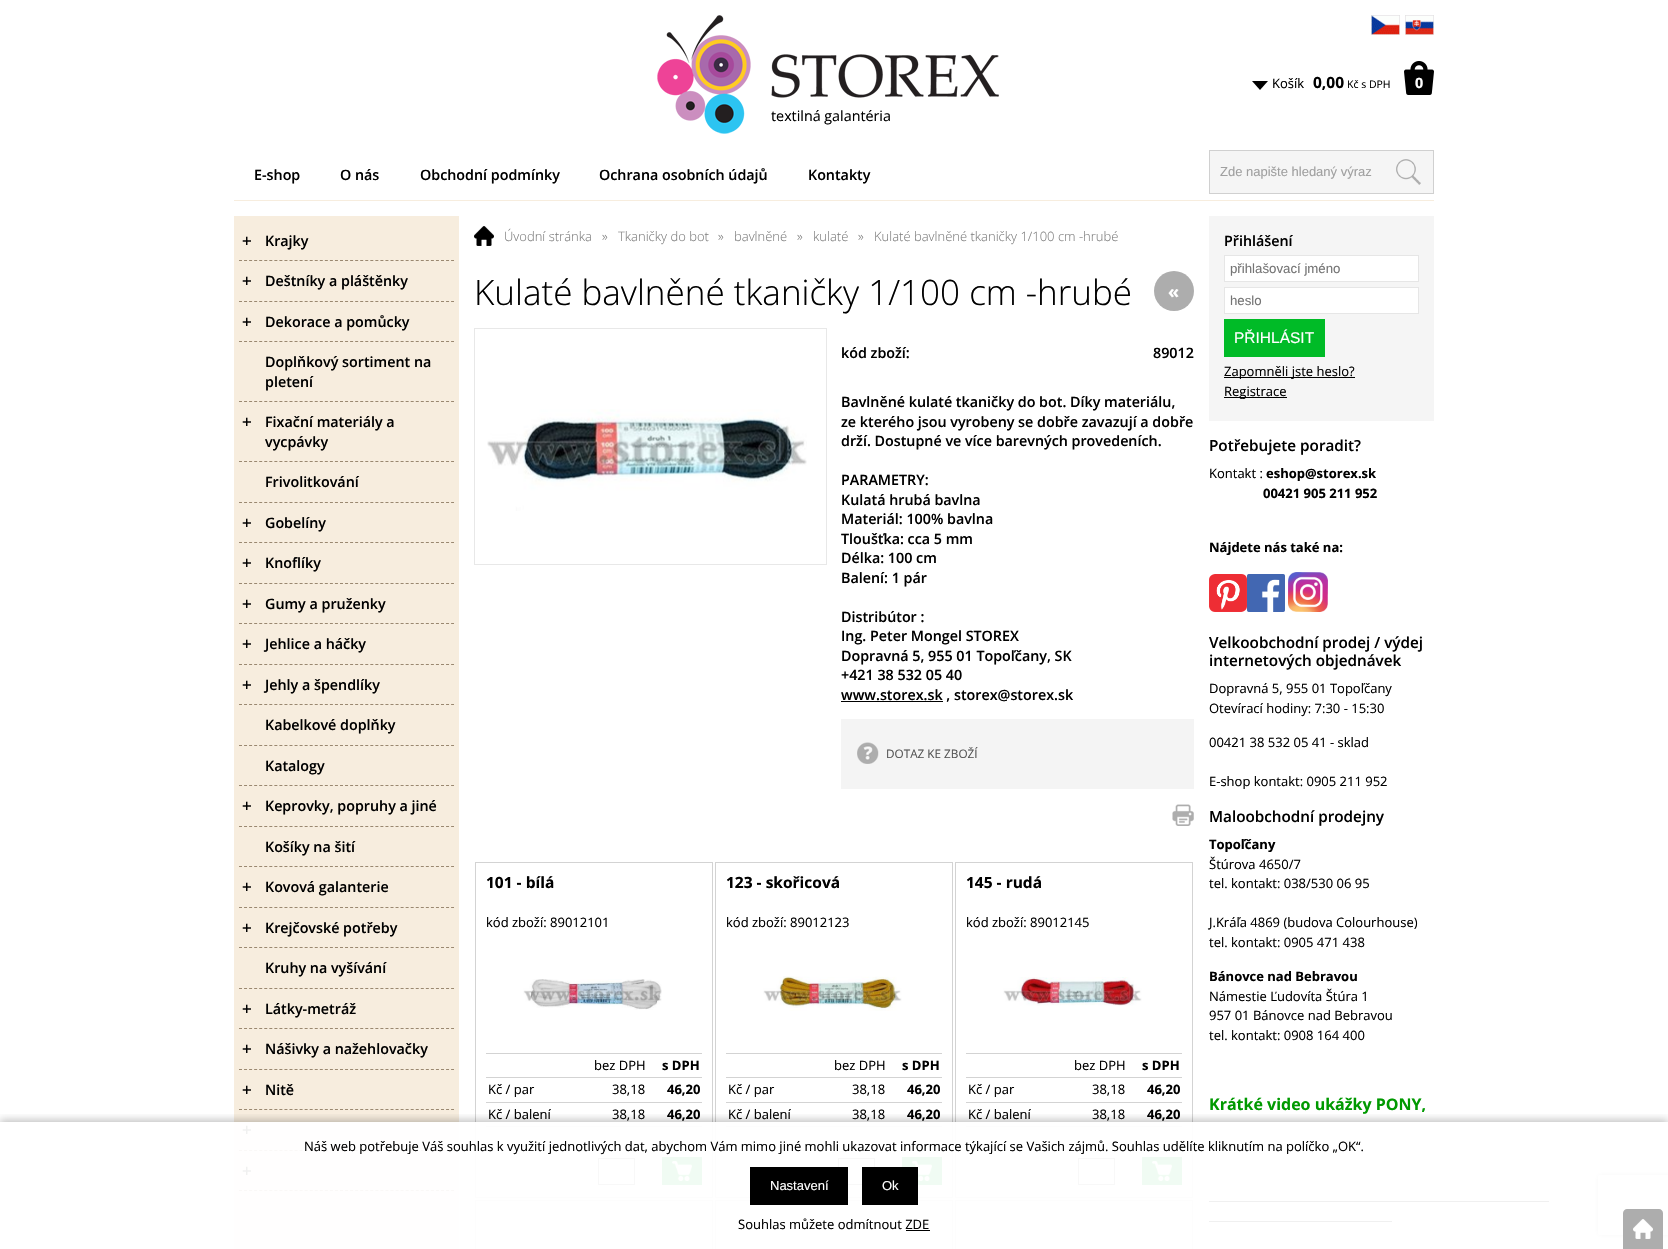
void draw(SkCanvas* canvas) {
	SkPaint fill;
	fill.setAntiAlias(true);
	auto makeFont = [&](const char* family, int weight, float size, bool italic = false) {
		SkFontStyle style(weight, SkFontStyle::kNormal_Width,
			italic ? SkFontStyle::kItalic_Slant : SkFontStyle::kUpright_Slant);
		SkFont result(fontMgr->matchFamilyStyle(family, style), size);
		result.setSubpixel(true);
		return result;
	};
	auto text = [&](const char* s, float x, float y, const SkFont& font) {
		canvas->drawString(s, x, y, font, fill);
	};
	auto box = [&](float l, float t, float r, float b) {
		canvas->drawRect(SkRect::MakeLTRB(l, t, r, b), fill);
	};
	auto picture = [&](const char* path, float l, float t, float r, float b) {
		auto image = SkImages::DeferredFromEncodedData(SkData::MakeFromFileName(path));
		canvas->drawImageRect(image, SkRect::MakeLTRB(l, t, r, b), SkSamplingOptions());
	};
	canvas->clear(0xFFFFFFFF);
	picture("image0.png", 1371, 15, 1400, 35);
	picture("image1.png", 1405, 15, 1434, 35);
	fill.setColor(0xFF000000);
	canvas->drawPath(SkPathBuilder().moveTo(1252, 81).lineTo(1268, 81).lineTo(1260, 90).close().detach(), fill);
	picture("image2.png", 1404, 61, 1434, 95);
	picture("image3.png", 657, 15, 999, 134);
	fill.setColor(0xFFF7EDDE);
	box(234, 200, 1434, 201);
	fill.setColor(0xFFF5F5F5);
	canvas->drawRect(SkRect::MakeLTRB(1209.5f, 150.5f, 1433.5f, 193.5f), fill);
	fill.setStyle(SkPaint::kStroke_Style);
	fill.setStrokeWidth(1);
	fill.setColor(0xFFD0D0D0);
	canvas->drawRect(SkRect::MakeLTRB(1209.5f, 150.5f, 1433.5f, 193.5f), fill);
	picture("image4.png", 1396, 159, 1421, 185);
	fill.setStyle(SkPaint::kFill_Style);
	fill.setColor(0xFFF7EDDE);
	box(234, 216, 459, 1249);
	picture("image5.png", 242, 236, 251, 245);
	fill.setStyle(SkPaint::kStroke_Style);
	fill.setColor(0xFF9A8870);
	fill.setPathEffect(SkDashPathEffect::Make({{3, 2.05f}}, 0));
	canvas->drawPath(SkPathBuilder().moveTo(239, 260.5f).lineTo(454, 260.5f).detach(), fill);
	fill.setPathEffect(nullptr);
	picture("image5.png", 242, 276, 251, 285);
	fill.setPathEffect(SkDashPathEffect::Make({{3, 2.05f}}, 0));
	canvas->drawPath(SkPathBuilder().moveTo(239, 301.5f).lineTo(454, 301.5f).detach(), fill);
	fill.setPathEffect(nullptr);
	picture("image5.png", 242, 317, 251, 326);
	fill.setPathEffect(SkDashPathEffect::Make({{3, 2.05f}}, 0));
	canvas->drawPath(SkPathBuilder().moveTo(239, 341.5f).lineTo(454, 341.5f).detach(), fill);
	fill.setPathEffect(nullptr);
	fill.setPathEffect(SkDashPathEffect::Make({{3, 2.05f}}, 0));
	canvas->drawPath(SkPathBuilder().moveTo(239, 401.5f).lineTo(454, 401.5f).detach(), fill);
	fill.setPathEffect(nullptr);
	picture("image5.png", 242, 417, 251, 426);
	fill.setPathEffect(SkDashPathEffect::Make({{3, 2.05f}}, 0));
	canvas->drawPath(SkPathBuilder().moveTo(239, 461.5f).lineTo(454, 461.5f).detach(), fill);
	fill.setPathEffect(nullptr);
	fill.setPathEffect(SkDashPathEffect::Make({{3, 2.05f}}, 0));
	canvas->drawPath(SkPathBuilder().moveTo(239, 502.5f).lineTo(454, 502.5f).detach(), fill);
	fill.setPathEffect(nullptr);
	picture("image5.png", 242, 518, 251, 527);
	fill.setPathEffect(SkDashPathEffect::Make({{3, 2.05f}}, 0));
	canvas->drawPath(SkPathBuilder().moveTo(239, 542.5f).lineTo(454, 542.5f).detach(), fill);
	fill.setPathEffect(nullptr);
	picture("image5.png", 242, 558, 251, 567);
	fill.setPathEffect(SkDashPathEffect::Make({{3, 2.05f}}, 0));
	canvas->drawPath(SkPathBuilder().moveTo(239, 583.5f).lineTo(454, 583.5f).detach(), fill);
	fill.setPathEffect(nullptr);
	picture("image5.png", 242, 599, 251, 608);
	fill.setPathEffect(SkDashPathEffect::Make({{3, 2.05f}}, 0));
	canvas->drawPath(SkPathBuilder().moveTo(239, 623.5f).lineTo(454, 623.5f).detach(), fill);
	fill.setPathEffect(nullptr);
	picture("image5.png", 242, 639, 251, 648);
	fill.setPathEffect(SkDashPathEffect::Make({{3, 2.05f}}, 0));
	canvas->drawPath(SkPathBuilder().moveTo(239, 664.5f).lineTo(454, 664.5f).detach(), fill);
	fill.setPathEffect(nullptr);
	picture("image5.png", 242, 680, 251, 689);
	fill.setPathEffect(SkDashPathEffect::Make({{3, 2.05f}}, 0));
	canvas->drawPath(SkPathBuilder().moveTo(239, 704.5f).lineTo(454, 704.5f).detach(), fill);
	fill.setPathEffect(nullptr);
	fill.setPathEffect(SkDashPathEffect::Make({{3, 2.05f}}, 0));
	canvas->drawPath(SkPathBuilder().moveTo(239, 745.5f).lineTo(454, 745.5f).detach(), fill);
	fill.setPathEffect(nullptr);
	fill.setPathEffect(SkDashPathEffect::Make({{3, 2.05f}}, 0));
	canvas->drawPath(SkPathBuilder().moveTo(239, 785.5f).lineTo(454, 785.5f).detach(), fill);
	fill.setPathEffect(nullptr);
	picture("image5.png", 242, 801, 251, 810);
	fill.setPathEffect(SkDashPathEffect::Make({{3, 2.05f}}, 0));
	canvas->drawPath(SkPathBuilder().moveTo(239, 826.5f).lineTo(454, 826.5f).detach(), fill);
	fill.setPathEffect(nullptr);
	fill.setPathEffect(SkDashPathEffect::Make({{3, 2.05f}}, 0));
	canvas->drawPath(SkPathBuilder().moveTo(239, 866.5f).lineTo(454, 866.5f).detach(), fill);
	fill.setPathEffect(nullptr);
	picture("image5.png", 242, 882, 251, 891);
	fill.setPathEffect(SkDashPathEffect::Make({{3, 2.05f}}, 0));
	canvas->drawPath(SkPathBuilder().moveTo(239, 907.5f).lineTo(454, 907.5f).detach(), fill);
	fill.setPathEffect(nullptr);
	picture("image5.png", 242, 923, 251, 932);
	fill.setPathEffect(SkDashPathEffect::Make({{3, 2.05f}}, 0));
	canvas->drawPath(SkPathBuilder().moveTo(239, 947.5f).lineTo(454, 947.5f).detach(), fill);
	fill.setPathEffect(nullptr);
	fill.setPathEffect(SkDashPathEffect::Make({{3, 2.05f}}, 0));
	canvas->drawPath(SkPathBuilder().moveTo(239, 988.5f).lineTo(454, 988.5f).detach(), fill);
	fill.setPathEffect(nullptr);
	picture("image5.png", 242, 1004, 251, 1013);
	fill.setPathEffect(SkDashPathEffect::Make({{3, 2.05f}}, 0));
	canvas->drawPath(SkPathBuilder().moveTo(239, 1028.5f).lineTo(454, 1028.5f).detach(), fill);
	fill.setPathEffect(nullptr);
	picture("image5.png", 242, 1044, 251, 1053);
	fill.setPathEffect(SkDashPathEffect::Make({{3, 2.05f}}, 0));
	canvas->drawPath(SkPathBuilder().moveTo(239, 1069.5f).lineTo(454, 1069.5f).detach(), fill);
	fill.setPathEffect(nullptr);
	picture("image5.png", 242, 1085, 251, 1094);
	fill.setPathEffect(SkDashPathEffect::Make({{3, 2.05f}}, 0));
	canvas->drawPath(SkPathBuilder().moveTo(239, 1109.5f).lineTo(454, 1109.5f).detach(), fill);
	fill.setPathEffect(nullptr);
	picture("image5.png", 242, 1125, 251, 1134);
	fill.setPathEffect(SkDashPathEffect::Make({{3, 2.05f}}, 0));
	canvas->drawPath(SkPathBuilder().moveTo(239, 1150.5f).lineTo(454, 1150.5f).detach(), fill);
	fill.setPathEffect(nullptr);
	picture("image5.png", 242, 1166, 251, 1175);
	fill.setPathEffect(SkDashPathEffect::Make({{3, 2.05f}}, 0));
	canvas->drawPath(SkPathBuilder().moveTo(239, 1190.5f).lineTo(454, 1190.5f).detach(), fill);
	fill.setPathEffect(nullptr);
	picture("image6.png", 474, 226, 494, 246);
	fill.setColor(0xFFE8E8E8);
	canvas->drawRect(SkRect::MakeLTRB(474.5f, 328.5f, 826.5f, 564.5f), fill);
	picture("image7.png", 487, 409, 807, 511);
	fill.setStyle(SkPaint::kFill_Style);
	fill.setColor(0xFF000000);
	box(841, 701, 943, 702);
	fill.setColor(0xFFF4F4F4);
	box(841, 719, 1194, 789);
	picture("image8.png", 857, 742, 879, 764);
	picture("image9.png", 1172, 804, 1194, 826);
	fill.setStyle(SkPaint::kStroke_Style);
	fill.setColor(0xFFD3D3D3);
	canvas->drawRect(SkRect::MakeLTRB(475.5f, 862.5f, 712.5f, 1197.5f), fill);
	picture("image10.png", 523, 979, 662, 1010);
	fill.setStyle(SkPaint::kFill_Style);
	box(486, 1053, 702, 1054);
	box(486, 1077, 702, 1078);
	box(486, 1102, 702, 1103);
	box(486, 1126, 702, 1127);
	fill.setStyle(SkPaint::kStroke_Style);
	fill.setColor(0xFF808080);
	canvas->drawRect(SkRect::MakeLTRB(598.5f, 1158.5f, 634.5f, 1184.5f), fill);
	fill.setStyle(SkPaint::kFill_Style);
	fill.setColor(0xFF00BB27);
	box(662, 1157, 702, 1185);
	picture("image11.png", 672, 1161, 692, 1181);
	fill.setStyle(SkPaint::kStroke_Style);
	fill.setColor(0xFFD3D3D3);
	canvas->drawRect(SkRect::MakeLTRB(715.5f, 862.5f, 952.5f, 1197.5f), fill);
	picture("image12.png", 763, 976, 902, 1011);
	fill.setStyle(SkPaint::kFill_Style);
	box(726, 1053, 942, 1054);
	box(726, 1077, 942, 1078);
	box(726, 1102, 942, 1103);
	box(726, 1126, 942, 1127);
	fill.setStyle(SkPaint::kStroke_Style);
	fill.setColor(0xFF808080);
	canvas->drawRect(SkRect::MakeLTRB(838.5f, 1158.5f, 874.5f, 1184.5f), fill);
	fill.setStyle(SkPaint::kFill_Style);
	fill.setColor(0xFF00BB27);
	box(902, 1157, 942, 1185);
	picture("image11.png", 912, 1161, 932, 1181);
	fill.setStyle(SkPaint::kStroke_Style);
	fill.setColor(0xFFD3D3D3);
	canvas->drawRect(SkRect::MakeLTRB(955.5f, 862.5f, 1192.5f, 1197.5f), fill);
	picture("image13.png", 1003, 977, 1142, 1006);
	fill.setStyle(SkPaint::kFill_Style);
	box(966, 1053, 1182, 1054);
	box(966, 1077, 1182, 1078);
	box(966, 1102, 1182, 1103);
	box(966, 1126, 1182, 1127);
	fill.setStyle(SkPaint::kStroke_Style);
	fill.setColor(0xFF808080);
	canvas->drawRect(SkRect::MakeLTRB(1078.5f, 1158.5f, 1114.5f, 1184.5f), fill);
	fill.setStyle(SkPaint::kFill_Style);
	fill.setColor(0xFF00BB27);
	box(1142, 1157, 1182, 1185);
	picture("image14.png", 1152, 1161, 1172, 1181);
	fill.setStyle(SkPaint::kStroke_Style);
	fill.setColor(0xFFD3D3D3);
	canvas->drawRect(SkRect::MakeLTRB(475.5f, 1200.5f, 712.5f, 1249.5f), fill);
	canvas->drawRect(SkRect::MakeLTRB(715.5f, 1200.5f, 952.5f, 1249.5f), fill);
	canvas->drawRect(SkRect::MakeLTRB(955.5f, 1200.5f, 1192.5f, 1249.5f), fill);
	fill.setStyle(SkPaint::kFill_Style);
	fill.setColor(0xFFADADAD);
	canvas->drawCircle(1174, 291, 20, fill);
	fill.setColor(0xFFF5F5F5);
	box(1209, 216, 1434, 421);
	fill.setColor(0xFFFFFFFF);
	canvas->drawRect(SkRect::MakeLTRB(1224.5f, 255.5f, 1418.5f, 281.5f), fill);
	fill.setStyle(SkPaint::kStroke_Style);
	fill.setColor(0xFFE6E6E6);
	canvas->drawRect(SkRect::MakeLTRB(1224.5f, 255.5f, 1418.5f, 281.5f), fill);
	fill.setStyle(SkPaint::kFill_Style);
	fill.setColor(0xFFFFFFFF);
	canvas->drawRect(SkRect::MakeLTRB(1224.5f, 287.5f, 1418.5f, 313.5f), fill);
	fill.setStyle(SkPaint::kStroke_Style);
	fill.setColor(0xFFE6E6E6);
	canvas->drawRect(SkRect::MakeLTRB(1224.5f, 287.5f, 1418.5f, 313.5f), fill);
	fill.setStyle(SkPaint::kFill_Style);
	fill.setColor(0xFF00BB27);
	box(1224, 319, 1325, 357);
	fill.setColor(0xFF000000);
	box(1224, 377, 1355, 378);
	box(1224, 397, 1287, 398);
	picture("image15.png", 1209, 574, 1247, 612);
	picture("image16.png", 1247, 574, 1285, 612);
	picture("image17.png", 1288, 572, 1328, 612);
	box(1209, 1201, 1549, 1202);
	box(1209, 1221, 1392, 1222);
	canvas->save();
	canvas->clipRect(SkRect::MakeLTRB(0, 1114, 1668, 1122));
	fill.setColor(0x40000000);
	fill.setMaskFilter(SkMaskFilter::MakeBlur(kNormal_SkBlurStyle, 4));
	canvas->drawRect(SkRect::MakeLTRB(0, 1120, 1668, 1247), fill);
	fill.setMaskFilter(nullptr);
	canvas->restore();
	canvas->save();
	canvas->clipPath(SkPathBuilder(SkPathFillType::kEvenOdd).moveTo(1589, 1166).lineTo(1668, 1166).lineTo(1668, 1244).lineTo(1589, 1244).close().moveTo(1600, 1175).lineTo(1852, 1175).cubicTo(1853, 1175, 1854, 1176, 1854, 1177).lineTo(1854, 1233).cubicTo(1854, 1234, 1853, 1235, 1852, 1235).lineTo(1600, 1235).cubicTo(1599, 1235, 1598, 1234, 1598, 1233).lineTo(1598, 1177).cubicTo(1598, 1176, 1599, 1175, 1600, 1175).close().detach(), true);
	fill.setColor(0xFF808080);
	fill.setMaskFilter(SkMaskFilter::MakeBlur(kNormal_SkBlurStyle, 2.5f));
	canvas->drawRoundRect(SkRect::MakeLTRB(1598, 1175, 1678, 1235), 2, 2, fill);
	fill.setMaskFilter(nullptr);
	canvas->restore();
	fill.setColor(0xF0FFFFFF);
	box(234, 1122, 1668, 1249);
	fill.setColor(0xFF000000);
	box(750, 1167, 848, 1205);
	box(862, 1167, 918, 1205);
	box(906, 1230, 930, 1231);
	fill.setColor(0xFFADADAD);
	canvas->drawPath(SkPathBuilder().moveTo(1627, 1209).lineTo(1659, 1209).cubicTo(1661, 1209, 1663, 1211, 1663, 1213).lineTo(1663, 1249).lineTo(1623, 1249).lineTo(1623, 1213).cubicTo(1623, 1211, 1625, 1209, 1627, 1209).close().detach(), fill);
	picture("image18.png", 1633, 1219, 1653, 1239);
	auto font1 = makeFont("Open Sans", 400, 13);
	fill.setColor(0xFF000000);
	text("Košík", 1272, 88, font1);
	auto font2 = makeFont("Open Sans", 700, 15.5f);
	text("0,00", 1313, 88, font2);
	auto font3 = makeFont("Open Sans", 400, 10.5f);
	text("Kč s DPH", 1347, 88, font3);
	auto font4 = makeFont("Open Sans", 700, 14.3f);
	fill.setColor(0xFFFFFFFF);
	text("0", 1415, 88, font4);
	auto font5 = makeFont("Open Sans", 400, 14.3f);
	fill.setColor(0xFF000000);
	text("textilná galantéria", 771, 121, font5);
	auto font6 = makeFont("Open Sans", 600, 14.3f);
	text("E-shop", 254, 180, font6);
	text("O nás", 340, 180, font6);
	text("Obchodní podmínky", 420, 180, font6);
	text("Ochrana osobních údajů", 599, 180, font6);
	text("Kontakty", 808, 180, font6);
	auto font7 = makeFont("Liberation Sans", 400, 13);
	fill.setColor(0xFFA0A0A0);
	text("Zde napište hledaný výraz", 1220, 176, font7);
	fill.setColor(0xFF000000);
	text("Krajky", 265, 246, font6);
	text("Deštníky a pláštěnky", 265, 286, font6);
	text("Dekorace a pomůcky", 265, 327, font6);
	text("Doplňkový sortiment na", 265, 367, font6);
	text("pletení", 265, 387, font6);
	text("Fixační materiály a", 265, 427, font6);
	text("vycpávky", 265, 447, font6);
	text("Frivolitkování", 265, 487, font6);
	text("Gobelíny", 265, 528, font6);
	text("Knoflíky", 265, 568, font6);
	text("Gumy a pruženky", 265, 609, font6);
	text("Jehlice a háčky", 265, 649, font6);
	text("Jehly a špendlíky", 265, 690, font6);
	text("Kabelkové doplňky", 265, 730, font6);
	text("Katalogy", 265, 771, font6);
	text("Keprovky, popruhy a jiné", 265, 811, font6);
	text("Košíky na šití", 265, 852, font6);
	text("Kovová galanterie", 265, 892, font6);
	text("Krejčovské potřeby", 265, 933, font6);
	text("Kruhy na vyšívání", 265, 973, font6);
	text("Látky-metráž", 265, 1014, font6);
	text("Nášivky a nažehlovačky", 265, 1054, font6);
	text("Nitě", 265, 1095, font6);
	auto font8 = makeFont("Open Sans", 300, 13);
	fill.setColor(0xFF808080);
	text("Úvodní stránka", 504, 241, font8);
	text("»", 602, 241, font8);
	text("Tkaničky do bot", 618, 241, font8);
	text("»", 718, 241, font8);
	text("bavlněné", 734, 241, font8);
	text("»", 797, 241, font8);
	text("kulaté", 813, 241, font8);
	text("»", 858, 241, font8);
	text("Kulaté bavlněné tkaničky 1/100 cm -hrubé", 874, 241, font8);
	auto font9 = makeFont("Open Sans", 300, 35);
	fill.setColor(0xFF000000);
	text("Kulaté bavlněné tkaničky 1/100 cm -hrubé", 474, 305, font9);
	text("kód zboží:", 841, 358, font6);
	text("89012", 1153, 358, font6);
	text("Bavlněné kulaté tkaničky do bot. Díky materiálu,", 841, 407, font6);
	text("ze kterého jsou vyrobeny se dobře zavazují a dobře", 841, 427, font6);
	text("drží. Dostupné ve více barevných provedeních.", 841, 446, font6);
	text("PARAMETRY:", 841, 485, font6);
	text("Kulatá hrubá bavlna", 841, 505, font6);
	text("Materiál: 100% bavlna", 841, 524, font6);
	text("Tloušťka: cca 5 mm", 841, 544, font6);
	text("Délka: 100 cm", 841, 563, font6);
	text("Balení: 1 pár", 841, 583, font6);
	text("Distribútor :", 841, 622, font6);
	text("Ing. Peter Mongel STOREX", 841, 641, font6);
	text("Dopravná 5, 955 01 Topoľčany, SK", 841, 661, font6);
	text("+421 38 532 05 40", 841, 680, font6);
	text("www.storex.sk , storex@storex.sk", 841, 700, font6);
	auto font10 = makeFont("Open Sans", 400, 11.75f);
	fill.setColor(0xFF555555);
	text("DOTAZ KE ZBOŽÍ", 886, 758, font10);
	fill.setColor(0xFF000000);
	text("101 - bílá", 486, 888, font2);
	text("kód zboží: 89012101", 486, 927, font1);
	text("bez DPH", 594, 1070, font1);
	auto font11 = makeFont("Open Sans", 700, 13);
	text("s DPH", 662, 1070, font11);
	text("Kč / par", 488, 1094, font1);
	text("38,18", 612, 1094, font1);
	text("46,20", 667, 1094, font11);
	text("Kč / balení", 488, 1119, font1);
	text("38,18", 612, 1119, font1);
	text("46,20", 667, 1119, font11);
	text("123 - skořicová", 726, 888, font2);
	text("kód zboží: 89012123", 726, 927, font1);
	text("bez DPH", 834, 1070, font1);
	text("s DPH", 902, 1070, font11);
	text("Kč / par", 728, 1094, font1);
	text("38,18", 852, 1094, font1);
	text("46,20", 907, 1094, font11);
	text("Kč / balení", 728, 1119, font1);
	text("38,18", 852, 1119, font1);
	text("46,20", 907, 1119, font11);
	text("145 - rudá", 966, 888, font2);
	text("kód zboží: 89012145", 966, 927, font1);
	text("bez DPH", 1074, 1070, font1);
	text("s DPH", 1142, 1070, font11);
	text("Kč / par", 968, 1094, font1);
	text("38,18", 1092, 1094, font1);
	text("46,20", 1147, 1094, font11);
	text("Kč / balení", 968, 1119, font1);
	text("38,18", 1092, 1119, font1);
	text("46,20", 1147, 1119, font11);
	auto font12 = makeFont("Open Sans", 700, 18);
	fill.setColor(0xFFFFFFFF);
	text("«", 1168, 298, font12);
	fill.setColor(0xFF000000);
	text("Přihlášení", 1224, 246, font6);
	auto font13 = makeFont("Liberation Sans", 400, 13.25f);
	fill.setColor(0xFF757575);
	text("přihlašovací jméno", 1230, 273, font13);
	text("heslo", 1230, 305, font13);
	auto font14 = makeFont("Liberation Sans", 400, 15.5f);
	fill.setColor(0xFFFFFFFF);
	text("PŘIHLÁSIT", 1234, 343, font14);
	fill.setColor(0xFF000000);
	text("Zapomněli jste heslo?", 1224, 376, font1);
	text("Registrace", 1224, 396, font1);
	auto font15 = makeFont("Open Sans", 600, 15.25f);
	text("Potřebujete poradit?", 1209, 451, font15);
	text("Kontakt :", 1209, 478, font1);
	text("eshop@storex.sk", 1266, 478, font11);
	text("00421 905 211 952", 1263, 498, font11);
	text("Nájdete nás také na:", 1209, 552, font11);
	text("Velkoobchodní prodej / výdej", 1209, 648, font15);
	text("internetových objednávek", 1209, 666, font15);
	text("Dopravná 5, 955 01 Topoľčany", 1209, 693, font1);
	text("Otevírací hodiny: 7:30 - 15:30", 1209, 713, font1);
	text("00421 38 532 05 41 - sklad", 1209, 747, font1);
	text("E-shop kontakt: 0905 211 952", 1209, 786, font1);
	text("Maloobchodní prodejny", 1209, 822, font15);
	text("Topoľčany", 1209, 849, font11);
	text("Štúrova 4650/7", 1209, 869, font1);
	text("tel. kontakt: 038/530 06 95", 1209, 888, font1);
	text("J.Kráľa 4869 (budova Colourhouse)", 1209, 927, font1);
	text("tel. kontakt: 0905 471 438", 1209, 947, font1);
	text("Bánovce nad Bebravou", 1209, 981, font11);
	text("Námestie Ľudovíta Štúra 1", 1209, 1001, font1);
	text("957 01 Bánovce nad Bebravou", 1209, 1020, font1);
	text("tel. kontakt: 0908 164 400", 1209, 1040, font1);
	auto font16 = makeFont("Open Sans", 700, 16);
	fill.setColor(0xFF009900);
	text("Krátké video ukážky PONY,", 1209, 1110, font16);
	fill.setColor(0xFF000000);
	text("Náš web potřebuje Váš souhlas k využití jednotlivých dat, abychom Vám mimo jiné mohli ukazovat informace týkající se Vašich zájmů. Souhlas udělíte kliknutím na políčko „OK“.", 304, 1151, font1);
	fill.setColor(0xFFFFFFFF);
	text("Nastavení", 770, 1190, font7);
	text("Ok", 882, 1190, font7);
	fill.setColor(0xFF000000);
	text("Souhlas můžete odmítnout ZDE", 738, 1229, font1);
}
